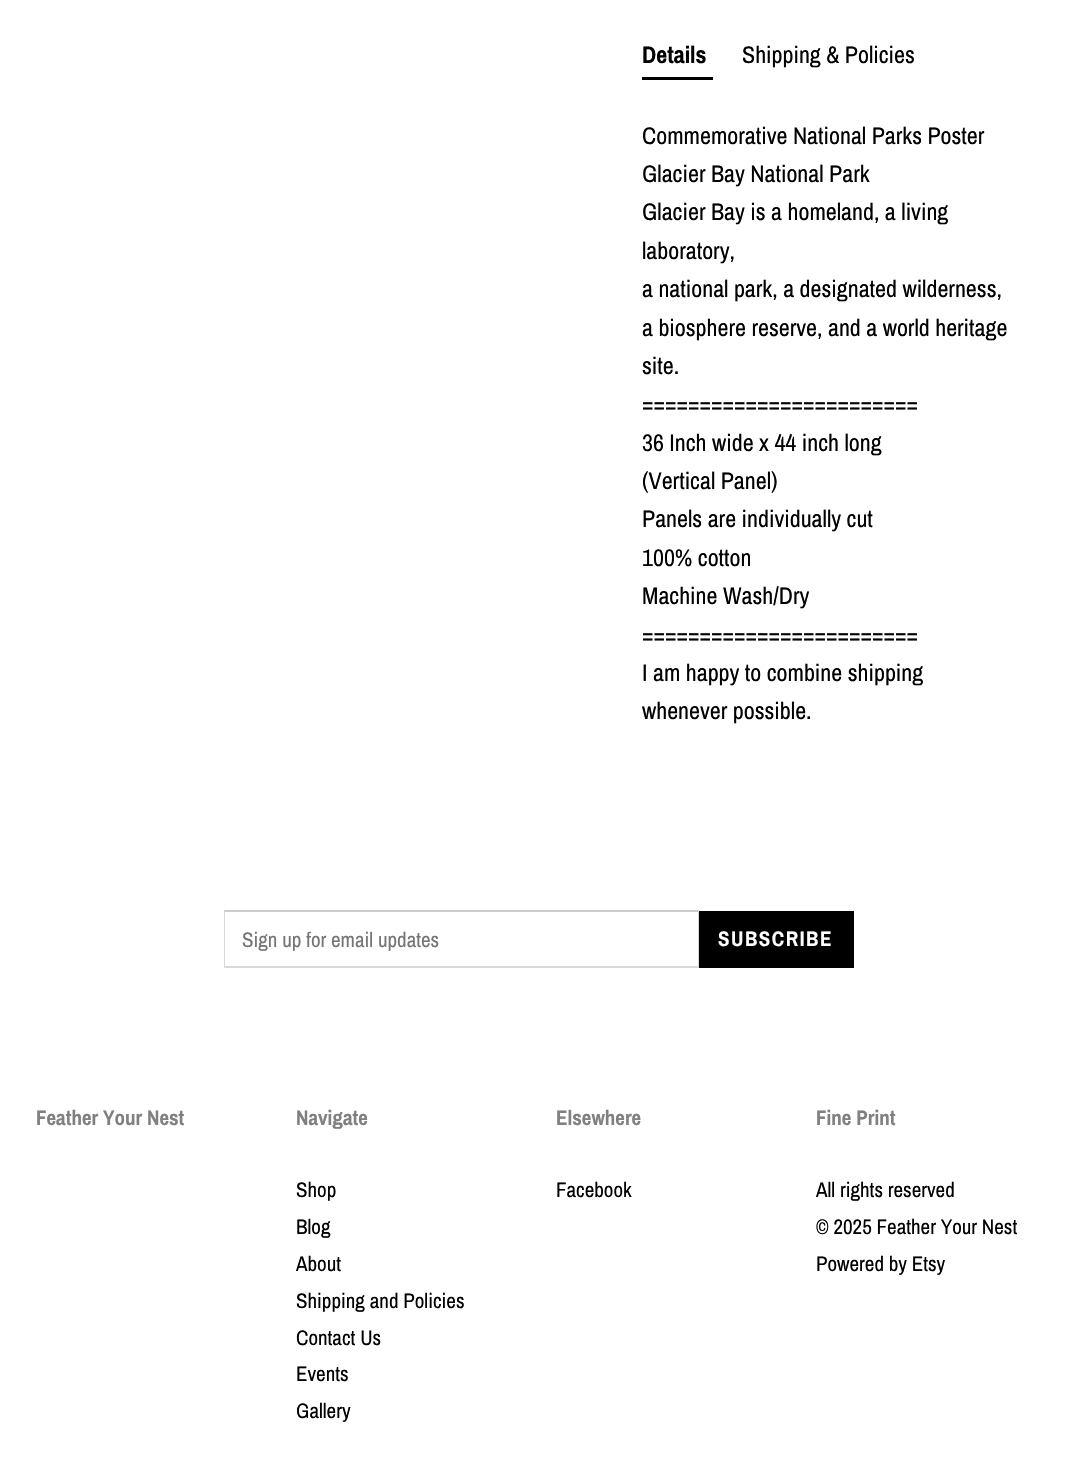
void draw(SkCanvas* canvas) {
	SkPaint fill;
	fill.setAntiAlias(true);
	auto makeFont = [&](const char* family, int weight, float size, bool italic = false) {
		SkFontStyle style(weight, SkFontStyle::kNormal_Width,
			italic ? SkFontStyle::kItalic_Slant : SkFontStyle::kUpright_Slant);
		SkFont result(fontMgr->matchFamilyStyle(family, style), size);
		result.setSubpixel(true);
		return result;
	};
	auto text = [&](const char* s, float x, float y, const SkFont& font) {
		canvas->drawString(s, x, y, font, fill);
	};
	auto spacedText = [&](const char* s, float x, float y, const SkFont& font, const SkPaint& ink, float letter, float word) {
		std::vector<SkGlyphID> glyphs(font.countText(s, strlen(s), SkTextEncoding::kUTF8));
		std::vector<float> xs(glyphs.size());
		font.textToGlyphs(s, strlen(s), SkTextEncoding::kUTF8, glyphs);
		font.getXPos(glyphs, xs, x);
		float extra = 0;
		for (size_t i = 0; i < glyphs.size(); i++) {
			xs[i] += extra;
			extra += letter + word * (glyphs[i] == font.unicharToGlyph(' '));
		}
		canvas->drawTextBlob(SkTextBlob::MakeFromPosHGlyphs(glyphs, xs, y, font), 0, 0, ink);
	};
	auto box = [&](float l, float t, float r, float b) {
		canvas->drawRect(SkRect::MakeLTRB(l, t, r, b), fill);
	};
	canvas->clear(0xFFFFFFFF);
	fill.setColor(0xFF000000);
	box(642, 77, 713, 80);
	fill.setColor(0xFFCCCCCC);
	canvas->drawPath(SkPathBuilder().moveTo(224, 910).lineTo(699, 910).lineTo(698, 912).lineTo(225, 912).close().detach(), fill);
	fill.setColor(0x26000000);
	canvas->drawPath(SkPathBuilder().moveTo(699, 910).lineTo(699, 968).lineTo(698, 966).lineTo(698, 912).close().detach(), fill);
	canvas->drawPath(SkPathBuilder().moveTo(699, 968).lineTo(224, 968).lineTo(225, 966).lineTo(698, 966).close().detach(), fill);
	canvas->drawPath(SkPathBuilder().moveTo(224, 968).lineTo(224, 910).lineTo(225, 912).lineTo(225, 966).close().detach(), fill);
	fill.setColor(0xFF000000);
	box(699, 911, 854, 968);
	auto font1 = makeFont("Archivo Narrow", 700, 24);
	text("Details", 642, 63, font1);
	auto font2 = makeFont("Archivo Narrow", 400, 24);
	text("Shipping & Policies", 742, 63, font2);
	text("Commemorative National Parks Poster", 642, 144, font2);
	text("Glacier Bay National Park", 642, 182, font2);
	text("Glacier Bay is a homeland, a living", 642, 220, font2);
	text("laboratory,", 642, 259, font2);
	text("a national park, a designated wilderness,", 642, 297, font2);
	text("a biosphere reserve, and a world heritage", 642, 336, font2);
	text("site.", 642, 374, font2);
	text("========================", 642, 412, font2);
	text("36 Inch wide x 44 inch long", 642, 451, font2);
	text("(Vertical Panel)", 642, 489, font2);
	text("Panels are individually cut", 642, 527, font2);
	text("100% cotton", 642, 566, font2);
	text("Machine Wash/Dry", 642, 604, font2);
	text("========================", 642, 643, font2);
	text("I am happy to combine shipping", 642, 681, font2);
	text("whenever possible.", 642, 719, font2);
	auto font3 = makeFont("Archivo Narrow", 400, 21);
	fill.setColor(0xFF757575);
	text("Sign up for email updates", 242, 947, font3);
	auto font4 = makeFont("Archivo Narrow", 700, 21);
	fill.setColor(0xFFFFFFFF);
	spacedText("SUBSCRIBE", 718, 946, font4, fill, 1.5f, 0);
	fill.setColor(0xFF808080);
	text("Feather Your Nest", 36, 1125, font4);
	text("Navigate", 296, 1125, font4);
	fill.setColor(0xFF000000);
	text("Shop", 296, 1197, font3);
	text("Blog", 296, 1234, font3);
	text("About", 296, 1271, font3);
	text("Shipping and Policies", 296, 1308, font3);
	text("Contact Us", 296, 1345, font3);
	text("Events", 296, 1381, font3);
	text("Gallery", 296, 1418, font3);
	fill.setColor(0xFF808080);
	text("Elsewhere", 556, 1125, font4);
	fill.setColor(0xFF000000);
	text("Facebook", 556, 1197, font3);
	fill.setColor(0xFF808080);
	text("Fine Print", 816, 1125, font4);
	fill.setColor(0xFF000000);
	text("All rights reserved", 816, 1197, font3);
	text("© 2025 Feather Your Nest", 816, 1234, font3);
	text("Powered by Etsy", 816, 1271, font3);
}
